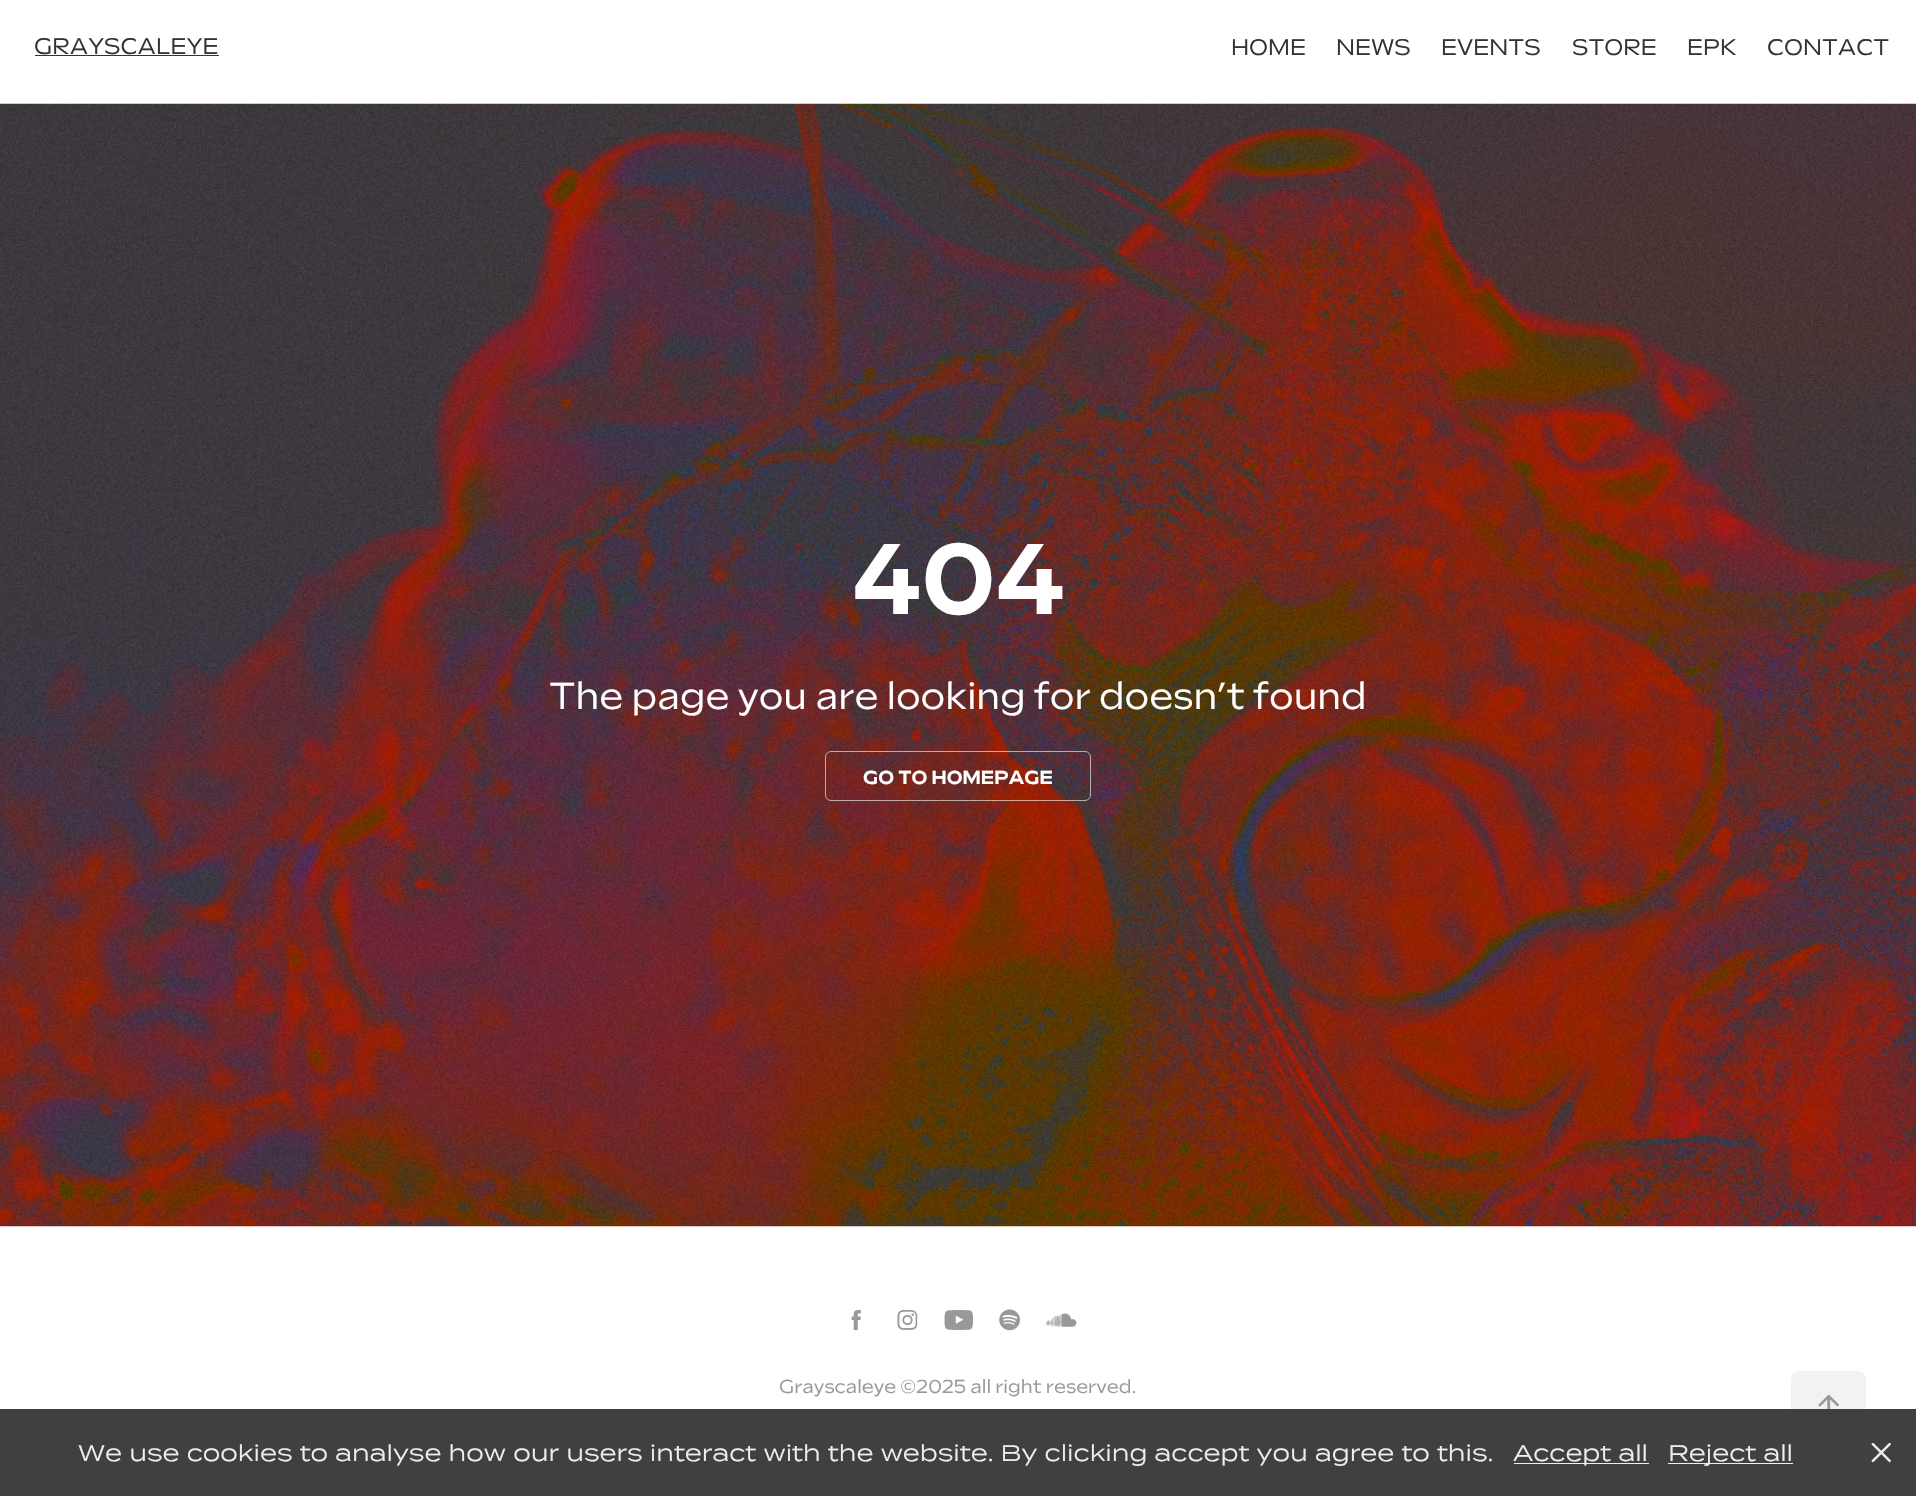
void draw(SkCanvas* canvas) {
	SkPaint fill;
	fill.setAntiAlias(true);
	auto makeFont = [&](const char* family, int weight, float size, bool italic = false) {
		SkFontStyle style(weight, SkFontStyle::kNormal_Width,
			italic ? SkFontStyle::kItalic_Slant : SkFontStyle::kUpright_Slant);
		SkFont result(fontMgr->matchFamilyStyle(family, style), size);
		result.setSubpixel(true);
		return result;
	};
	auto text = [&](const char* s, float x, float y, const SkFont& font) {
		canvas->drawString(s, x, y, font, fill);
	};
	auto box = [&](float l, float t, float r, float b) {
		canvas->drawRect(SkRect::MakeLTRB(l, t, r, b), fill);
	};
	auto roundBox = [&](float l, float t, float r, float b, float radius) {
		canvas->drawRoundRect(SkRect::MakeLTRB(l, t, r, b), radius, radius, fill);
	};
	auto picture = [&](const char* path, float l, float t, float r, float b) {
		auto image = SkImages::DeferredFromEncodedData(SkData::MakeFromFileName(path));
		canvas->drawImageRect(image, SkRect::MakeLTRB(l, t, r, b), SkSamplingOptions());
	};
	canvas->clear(0xFFFFFFFF);
	fill.setColor(0xFF333333);
	box(35, 55, 219, 56);
	picture("image0.png", 0, 103, 1916, 1227);
	fill.setStyle(SkPaint::kStroke_Style);
	fill.setStrokeWidth(1);
	fill.setColor(0x99FFFFFF);
	canvas->drawRoundRect(SkRect::MakeLTRB(825.5f, 751.5f, 1090.5f, 800.5f), 5.5f, 5.5f, fill);
	picture("image1.png", 851, 1310, 861, 1330);
	picture("image2.png", 897, 1310, 918, 1330);
	picture("image3.png", 944, 1310, 973, 1330);
	picture("image4.png", 999, 1309, 1020, 1331);
	picture("image5.png", 1046, 1313, 1077, 1327);
	fill.setStyle(SkPaint::kFill_Style);
	fill.setColor(0xFFF2F2F2);
	roundBox(1791, 1371, 1866, 1446, 8);
	picture("image6.png", 1818, 1395, 1839, 1409);
	fill.setColor(0xFF404040);
	box(0, 1409, 1916, 1496);
	fill.setColor(0xFFEDEEEE);
	box(1514, 1463, 1649, 1464);
	box(1668, 1463, 1793, 1464);
	picture("image7.png", 1871, 1443, 1891, 1463);
	auto font1 = makeFont("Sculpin", 400, 22.5f);
	fill.setColor(0xFF333333);
	text("GRAYSCALEYE", 34, 54, font1);
	text("HOME", 1231, 55, font1);
	text("NEWS", 1336, 55, font1);
	text("EVENTS", 1441, 55, font1);
	text("STORE", 1572, 55, font1);
	text("EPK", 1687, 55, font1);
	text("CONTACT", 1767, 55, font1);
	auto font2 = makeFont("Sculpin", 700, 100);
	fill.setColor(0xFFFFFFFF);
	text("404", 852, 614, font2);
	auto font3 = makeFont("Sculpin", 400, 37.5f);
	text("The page you are looking for doesn’t found", 549, 709, font3);
	auto font4 = makeFont("Sculpin", 700, 18.75f);
	text("GO TO HOMEPAGE", 863, 784, font4);
	auto font5 = makeFont("Sculpin", 400, 18.75f);
	fill.setColor(0xFF999999);
	text("Grayscaleye ©2025 all right reserved.", 779, 1393, font5);
	auto font6 = makeFont("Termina", 400, 22.5f);
	fill.setColor(0xFFEDEEEE);
	text("We use cookies to analyse how our users interact with the website. By clicking accept you agree to this.", 78, 1461, font6);
	text("Accept all", 1513, 1461, font6);
	text("Reject all", 1668, 1461, font6);
}
